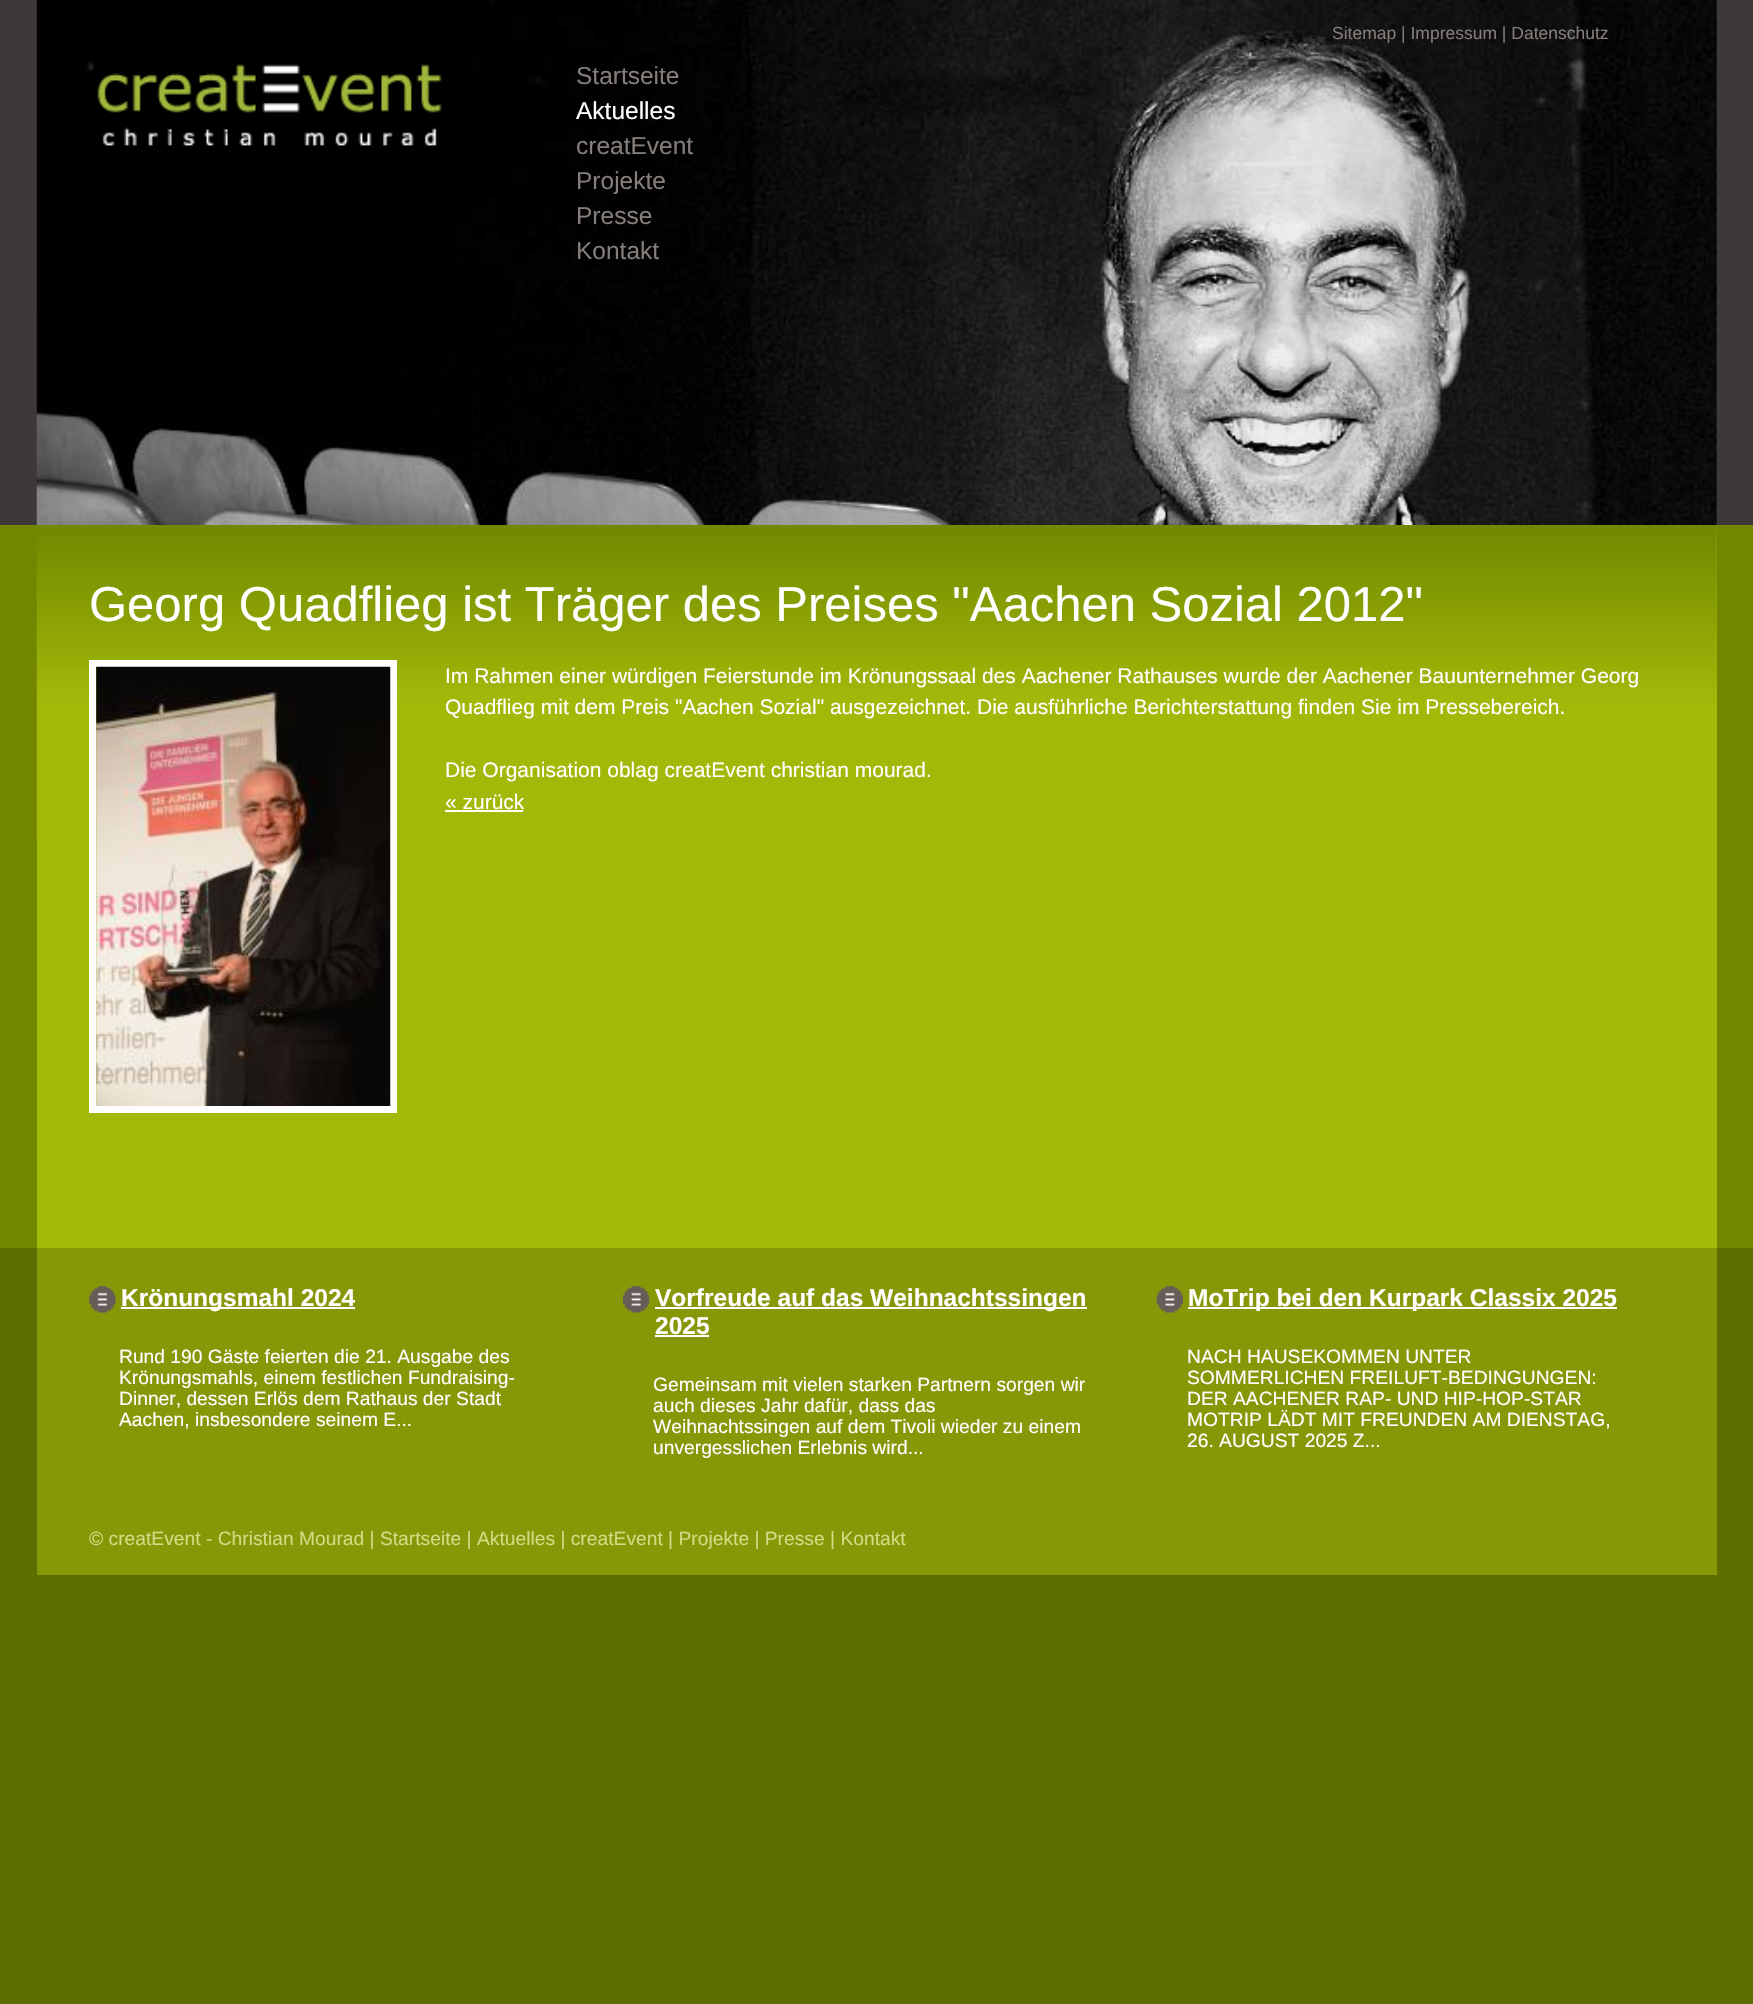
void draw(SkCanvas* canvas) {
	SkPaint fill;
	fill.setAntiAlias(true);
	auto makeFont = [&](const char* family, int weight, float size, bool italic = false) {
		SkFontStyle style(weight, SkFontStyle::kNormal_Width,
			italic ? SkFontStyle::kItalic_Slant : SkFontStyle::kUpright_Slant);
		SkFont result(fontMgr->matchFamilyStyle(family, style), size);
		result.setSubpixel(true);
		return result;
	};
	auto text = [&](const char* s, float x, float y, const SkFont& font) {
		canvas->drawString(s, x, y, font, fill);
	};
	auto box = [&](float l, float t, float r, float b) {
		canvas->drawRect(SkRect::MakeLTRB(l, t, r, b), fill);
	};
	auto picture = [&](const char* path, float l, float t, float r, float b) {
		auto image = SkImages::DeferredFromEncodedData(SkData::MakeFromFileName(path));
		canvas->drawImageRect(image, SkRect::MakeLTRB(l, t, r, b), SkSamplingOptions());
	};
	canvas->clear(0xFF5D6F00);
	fill.setColor(0xFF3D3938);
	box(0, 0, 1753, 525);
	picture("image0.png", 36, 0, 1717, 315);
	picture("image1.png", 97, 64, 442, 146);
	picture("image2.png", 36, 315, 1717, 525);
	fill.setColor(0xFF718700);
	box(0, 525, 1753, 1248);
	fill.setColor(0xFFA3B909);
	box(37, 525, 1717, 1248);
	picture("image3.png", 36, 525, 1717, 840);
	fill.setStyle(SkPaint::kStroke_Style);
	fill.setStrokeWidth(7);
	fill.setColor(0xFFFFFFFF);
	canvas->drawRect(SkRect::MakeLTRB(92.5f, 663.5f, 393.5f, 1109.5f), fill);
	picture("image4.png", 96, 666, 391, 1106);
	fill.setStyle(SkPaint::kFill_Style);
	box(445, 810, 523, 812);
	fill.setColor(0xFF869807);
	box(37, 1248, 1717, 1575);
	picture("image5.png", 89, 1286, 116, 1313);
	fill.setColor(0xFFFFFFFF);
	box(121, 1307, 355, 1309);
	picture("image6.png", 623, 1286, 650, 1313);
	box(655, 1307, 1087, 1309);
	box(655, 1335, 709, 1337);
	picture("image7.png", 1156, 1286, 1183, 1313);
	box(1188, 1307, 1617, 1309);
	auto font1 = makeFont("Liberation Sans", 400, 17.5f);
	fill.setColor(0xFF857D79);
	text("Sitemap | Impressum | Datenschutz", 1332, 39, font1);
	auto font2 = makeFont("Liberation Sans", 400, 24.5f);
	text("Startseite", 576, 84, font2);
	fill.setColor(0xFFFFFFFF);
	text("Aktuelles", 576, 119, font2);
	fill.setColor(0xFF857D79);
	text("creatEvent", 576, 154, font2);
	text("Projekte", 576, 189, font2);
	text("Presse", 576, 224, font2);
	text("Kontakt", 576, 259, font2);
	auto font3 = makeFont("Liberation Sans", 400, 49);
	fill.setColor(0xFFFFFFFF);
	text("Georg Quadflieg ist Träger des Preises \"Aachen Sozial 2012\"", 89, 621, font3);
	auto font4 = makeFont("Liberation Sans", 400, 21);
	text("Im Rahmen einer würdigen Feierstunde im Krönungssaal des Aachener Rathauses wurde der Aachener Bauunternehmer Georg", 445, 683, font4);
	text("Quadflieg mit dem Preis \"Aachen Sozial\" ausgezeichnet. Die ausführliche Berichterstattung finden Sie im Pressebereich.", 445, 714, font4);
	text("Die Organisation oblag creatEvent christian mourad.", 445, 777, font4);
	text("« zurück", 445, 809, font4);
	auto font5 = makeFont("Liberation Sans", 700, 24.5f);
	text("Krönungsmahl 2024", 121, 1306, font5);
	auto font6 = makeFont("Liberation Sans", 400, 19.25f);
	text("Rund 190 Gäste feierten die 21. Ausgabe des", 119, 1363, font6);
	text("Krönungsmahls, einem festlichen Fundraising-", 119, 1384, font6);
	text("Dinner, dessen Erlös dem Rathaus der Stadt", 119, 1405, font6);
	text("Aachen, insbesondere seinem E...", 119, 1426, font6);
	text("Vorfreude auf das Weihnachtssingen", 655, 1306, font5);
	text("2025", 655, 1334, font5);
	text("Gemeinsam mit vielen starken Partnern sorgen wir", 653, 1391, font6);
	text("auch dieses Jahr dafür, dass das", 653, 1412, font6);
	text("Weihnachtssingen auf dem Tivoli wieder zu einem", 653, 1433, font6);
	text("unvergesslichen Erlebnis wird...", 653, 1454, font6);
	text("MoTrip bei den Kurpark Classix 2025", 1188, 1306, font5);
	text("NACH HAUSEKOMMEN UNTER", 1187, 1363, font6);
	text("SOMMERLICHEN FREILUFT-BEDINGUNGEN:", 1187, 1384, font6);
	text("DER AACHENER RAP- UND HIP-HOP-STAR", 1187, 1405, font6);
	text("MOTRIP LÄDT MIT FREUNDEN AM DIENSTAG,", 1187, 1426, font6);
	text("26. AUGUST 2025 Z...", 1187, 1447, font6);
	fill.setColor(0xFFD1DC84);
	text("© creatEvent - Christian Mourad | Startseite | Aktuelles | creatEvent | Projekte | Presse | Kontakt", 89, 1545, font6);
}
